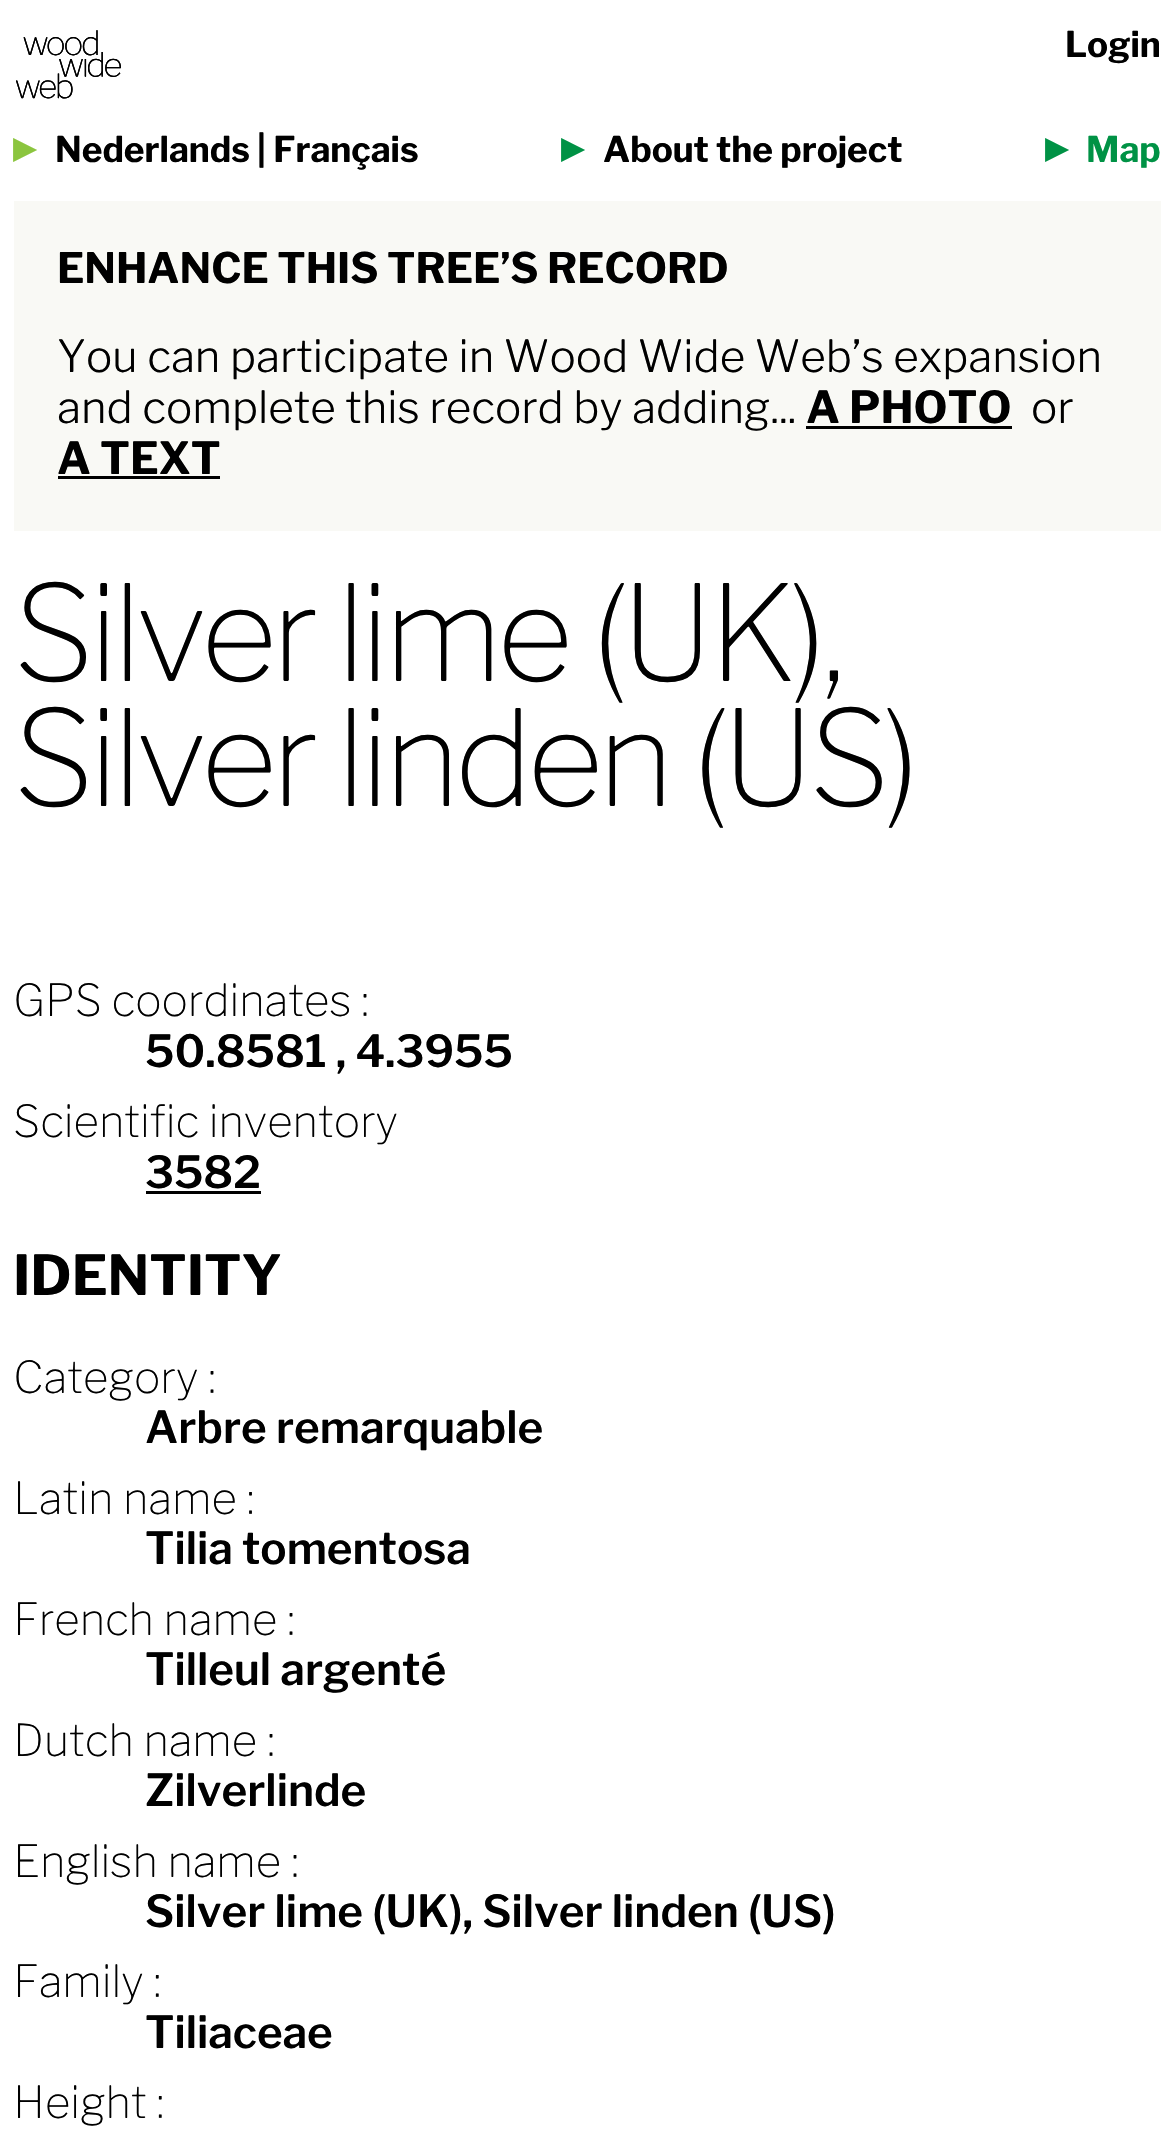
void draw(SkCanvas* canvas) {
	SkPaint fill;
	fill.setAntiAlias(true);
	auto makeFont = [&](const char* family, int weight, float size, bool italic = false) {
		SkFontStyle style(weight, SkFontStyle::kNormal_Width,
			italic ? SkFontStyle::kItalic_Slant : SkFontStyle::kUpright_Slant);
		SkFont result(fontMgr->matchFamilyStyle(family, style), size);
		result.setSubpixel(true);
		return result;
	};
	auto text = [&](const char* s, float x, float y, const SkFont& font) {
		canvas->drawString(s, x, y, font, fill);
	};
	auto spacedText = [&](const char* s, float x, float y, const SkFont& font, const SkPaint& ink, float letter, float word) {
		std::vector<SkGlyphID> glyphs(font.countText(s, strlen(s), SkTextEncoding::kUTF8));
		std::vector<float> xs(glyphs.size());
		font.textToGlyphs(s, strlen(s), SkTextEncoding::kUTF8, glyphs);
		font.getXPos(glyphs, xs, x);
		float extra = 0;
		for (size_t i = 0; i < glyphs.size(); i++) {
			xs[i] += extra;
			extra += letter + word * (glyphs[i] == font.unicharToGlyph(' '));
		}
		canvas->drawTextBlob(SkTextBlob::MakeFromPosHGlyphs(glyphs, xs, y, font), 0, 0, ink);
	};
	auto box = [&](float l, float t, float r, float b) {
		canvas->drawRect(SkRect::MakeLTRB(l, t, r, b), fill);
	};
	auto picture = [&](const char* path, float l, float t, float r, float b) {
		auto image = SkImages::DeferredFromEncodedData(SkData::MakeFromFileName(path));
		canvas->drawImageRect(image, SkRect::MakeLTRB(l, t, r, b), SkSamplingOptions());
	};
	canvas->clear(0xFFFFFFFF);
	picture("image0.png", 16, 30, 121, 99);
	fill.setColor(0xFFF9F9F5);
	box(14, 201, 1161, 531);
	fill.setColor(0xFF000000);
	box(806, 426, 1012, 429);
	box(58, 476, 220, 479);
	box(146, 1191, 261, 1194);
	auto font1 = makeFont("Libre Franklin", 700, 35.25f);
	text("Login", 1065, 57, font1);
	auto font2 = makeFont("DejaVu Sans", 700, 44);
	fill.setColor(0xFF8BC53E);
	text("▸", 13, 162, font2);
	fill.setColor(0xFF000000);
	text("Nederlands | Français", 55, 162, font1);
	fill.setColor(0xFF009245);
	text("▸", 561, 162, font2);
	fill.setColor(0xFF000000);
	text("About the project", 603, 162, font1);
	fill.setColor(0xFF009245);
	text("▸", 1045, 162, font2);
	text("Map", 1086, 162, font1);
	auto font3 = makeFont("Libre Franklin", 700, 41.75f);
	fill.setColor(0xFF000000);
	text("ENHANCE THIS TREE’S RECORD", 57, 283, font3);
	auto font4 = makeFont("Libre Franklin", 300, 44);
	text("You can participate in Wood Wide Web’s expansion", 57, 372, font4);
	text("and complete this record by adding...", 57, 423, font4);
	auto font5 = makeFont("Libre Franklin", 700, 44);
	text("A PHOTO", 806, 423, font5);
	text("or", 1031, 423, font4);
	text("A TEXT", 57, 474, font5);
	auto font6 = makeFont("Libre Franklin", 100, 132);
	spacedText("Silver lime (UK),", 13, 681, font6, fill, -5.5f, 0);
	spacedText("Silver linden (US)", 13, 806, font6, fill, -5.5f, 0);
	auto font7 = makeFont("Libre Franklin", 100, 44);
	text("GPS coordinates :", 13, 1016, font7);
	auto font8 = makeFont("Libre Franklin", 600, 44);
	text("50.8581 , 4.3955", 145, 1067, font8);
	text("Scientific inventory", 13, 1137, font7);
	text("3582", 145, 1188, font8);
	auto font9 = makeFont("Libre Franklin", 700, 55);
	text("IDENTITY", 13, 1295, font9);
	text("Category :", 13, 1393, font7);
	text("Arbre remarquable", 145, 1443, font8);
	text("Latin name :", 13, 1514, font7);
	text("Tilia tomentosa", 145, 1564, font8);
	text("French name :", 13, 1635, font7);
	text("Tilleul argenté", 145, 1685, font8);
	text("Dutch name :", 13, 1756, font7);
	text("Zilverlinde", 145, 1806, font8);
	text("English name :", 13, 1877, font7);
	text("Silver lime (UK), Silver linden (US)", 145, 1927, font8);
	text("Family :", 13, 1997, font7);
	text("Tiliaceae", 145, 2048, font8);
	text("Height :", 13, 2118, font7);
}
